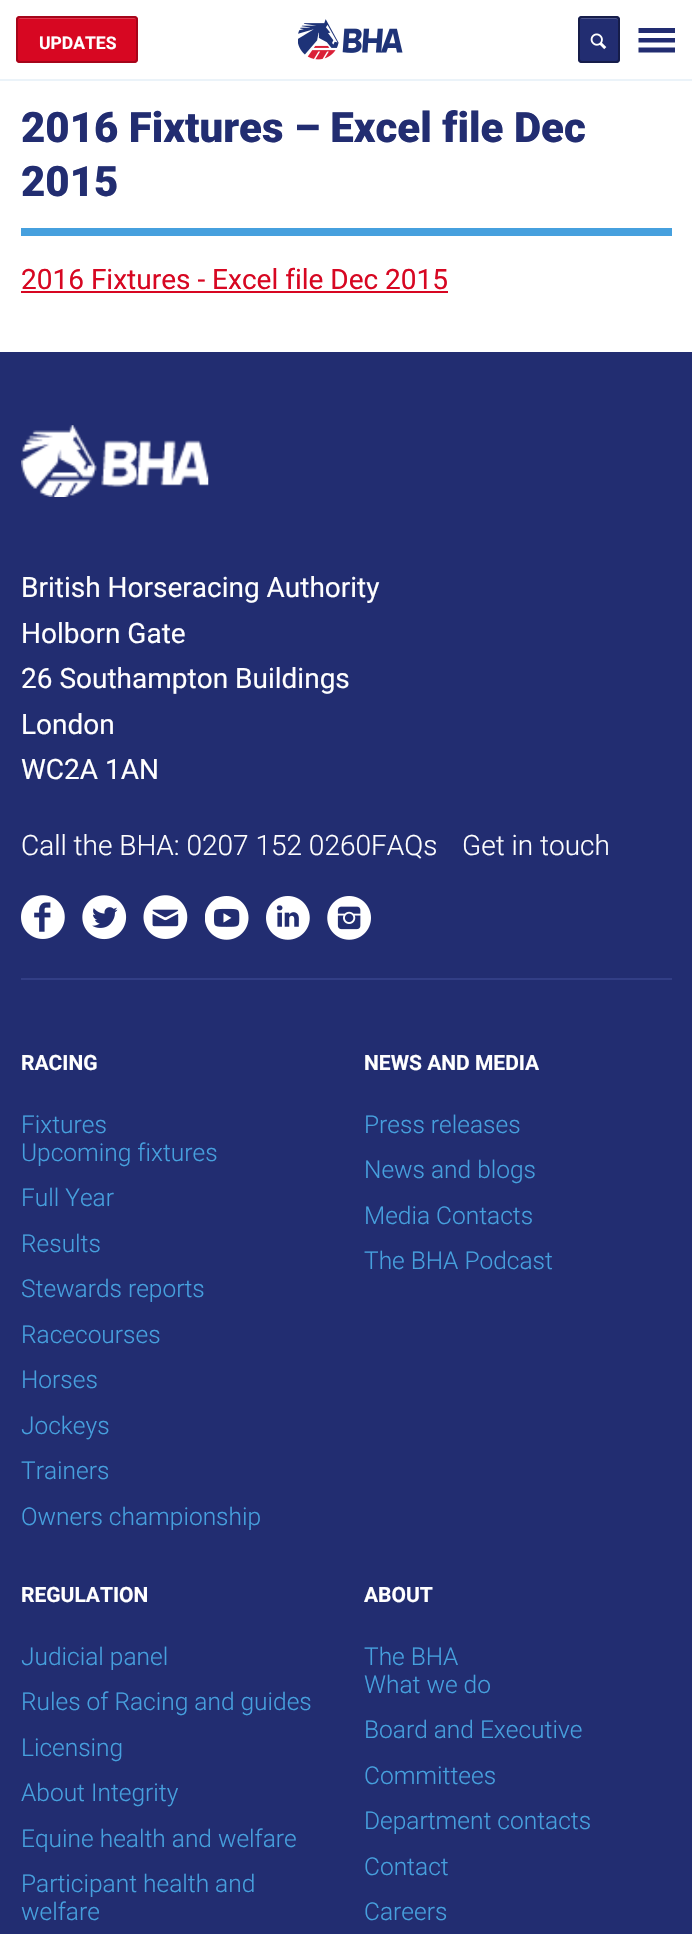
void draw(SkCanvas* canvas) {
	SkPaint fill;
	fill.setAntiAlias(true);
	auto makeFont = [&](const char* family, int weight, float size, bool italic = false) {
		SkFontStyle style(weight, SkFontStyle::kNormal_Width,
			italic ? SkFontStyle::kItalic_Slant : SkFontStyle::kUpright_Slant);
		SkFont result(fontMgr->matchFamilyStyle(family, style), size);
		result.setSubpixel(true);
		return result;
	};
	auto text = [&](const char* s, float x, float y, const SkFont& font) {
		canvas->drawString(s, x, y, font, fill);
	};
	auto box = [&](float l, float t, float r, float b) {
		canvas->drawRect(SkRect::MakeLTRB(l, t, r, b), fill);
	};
	auto roundBox = [&](float l, float t, float r, float b, float radius) {
		canvas->drawRoundRect(SkRect::MakeLTRB(l, t, r, b), radius, radius, fill);
	};
	auto picture = [&](const char* path, float l, float t, float r, float b) {
		auto image = SkImages::DeferredFromEncodedData(SkData::MakeFromFileName(path));
		canvas->drawImageRect(image, SkRect::MakeLTRB(l, t, r, b), SkSamplingOptions());
	};
	canvas->clear(0xFFFFFFFF);
	fill.setColor(0xFFEBF3F9);
	box(0, 79, 692, 81);
	fill.setColor(0xFFD70722);
	roundBox(16, 16, 138, 63, 4);
	fill.setColor(0xFFDF394E);
	canvas->drawPath(SkPathBuilder().moveTo(19, 19).lineTo(135, 19).cubicTo(136, 19, 136, 20, 136, 21).lineTo(136, 61).cubicTo(137, 60, 137, 60, 137, 59).lineTo(137, 20).cubicTo(137, 19, 136, 18, 135, 18).lineTo(20, 18).cubicTo(19, 18, 18, 19, 18, 20).lineTo(18, 21).cubicTo(18, 20, 18, 19, 19, 19).close().detach(), fill);
	fill.setStyle(SkPaint::kStroke_Style);
	fill.setStrokeWidth(2);
	fill.setColor(0xFFA6051A);
	canvas->drawRoundRect(SkRect::MakeLTRB(17, 17, 137, 62), 3, 3, fill);
	picture("image0.png", 298, 19, 403, 60);
	fill.setStyle(SkPaint::kFill_Style);
	fill.setColor(0xFF222D71);
	roundBox(578, 16, 620, 63, 4);
	fill.setColor(0xFF4E578D);
	canvas->drawPath(SkPathBuilder().moveTo(581, 19).lineTo(616, 19).cubicTo(617, 19, 618, 20, 618, 21).cubicTo(618, 16.5f, 614, 18, 610, 18).lineTo(587, 18).cubicTo(583, 18, 579, 16.5f, 579, 21).cubicTo(579, 20, 580, 19, 581, 19).close().detach(), fill);
	fill.setStyle(SkPaint::kStroke_Style);
	fill.setColor(0xFF161D4A);
	canvas->drawRoundRect(SkRect::MakeLTRB(579, 17, 619, 62), 3, 3, fill);
	picture("image1.png", 590, 33, 607, 50);
	fill.setStyle(SkPaint::kFill_Style);
	fill.setColor(0xFF222D71);
	canvas->drawPath(SkPathBuilder().moveTo(638.5f, 28).lineTo(675, 28).lineTo(675, 33).lineTo(638.5f, 33).close().moveTo(638.5f, 38).lineTo(675, 38).lineTo(675, 42.5f).lineTo(638.5f, 42.5f).close().moveTo(638.5f, 47.5f).lineTo(675, 47.5f).lineTo(675, 52.5f).lineTo(638.5f, 52.5f).close().detach(), fill);
	fill.setColor(0xFF46A0DE);
	box(21, 228, 672, 236);
	fill.setColor(0xFFD70722);
	box(21, 291, 448, 293);
	fill.setColor(0xFF222D71);
	box(0, 352, 692, 1934);
	picture("image2.png", 21, 425, 209, 497);
	fill.setColor(0xFF323E86);
	box(21, 978, 672, 980);
	picture("image3.png", 21, 895, 65, 939);
	picture("image4.png", 82, 895, 127, 940);
	picture("image5.png", 143, 895, 188, 939);
	picture("image6.png", 205, 896, 249, 940);
	picture("image7.png", 266, 896, 310, 940);
	picture("image8.png", 327, 896, 371, 940);
	auto font1 = makeFont("Roboto", 700, 17.5f);
	fill.setColor(0xFFFFFFFF);
	text("UPDATES", 39, 49, font1);
	auto font2 = makeFont("Roboto", 900, 42);
	fill.setColor(0xFF222D71);
	text("2016 Fixtures – Excel file Dec", 21, 142, font2);
	text("2015", 21, 196, font2);
	auto font3 = makeFont("Roboto", 400, 28);
	fill.setColor(0xFFD70722);
	text("2016 Fixtures - Excel file Dec 2015", 21, 289, font3);
	fill.setColor(0xFFFFFFFF);
	text("British Horseracing Authority", 21, 597, font3);
	text("Holborn Gate", 21, 643, font3);
	text("26 Southampton Buildings", 21, 688, font3);
	text("London", 21, 734, font3);
	text("WC2A 1AN", 21, 779, font3);
	auto font4 = makeFont("Roboto", 300, 28);
	text("Call the BHA: 0207 152 0260FAQs", 21, 855, font4);
	text("Get in touch", 462, 855, font4);
	auto font5 = makeFont("Roboto", 700, 21);
	text("RACING", 21, 1070, font5);
	auto font6 = makeFont("Roboto", 300, 24.5f);
	fill.setColor(0xFF46A0DE);
	text("Fixtures", 21, 1133, font6);
	text("Upcoming fixtures", 21, 1161, font6);
	text("Full Year", 21, 1206, font6);
	text("Results", 21, 1252, font6);
	text("Stewards reports", 21, 1297, font6);
	text("Racecourses", 21, 1343, font6);
	text("Horses", 21, 1388, font6);
	text("Jockeys", 21, 1434, font6);
	text("Trainers", 21, 1479, font6);
	text("Owners championship", 21, 1525, font6);
	fill.setColor(0xFFFFFFFF);
	text("NEWS AND MEDIA", 364, 1070, font5);
	fill.setColor(0xFF46A0DE);
	text("Press releases", 364, 1133, font6);
	text("News and blogs", 364, 1178, font6);
	text("Media Contacts", 364, 1224, font6);
	text("The BHA Podcast", 364, 1269, font6);
	fill.setColor(0xFFFFFFFF);
	text("REGULATION", 21, 1602, font5);
	fill.setColor(0xFF46A0DE);
	text("Judicial panel", 21, 1665, font6);
	text("Rules of Racing and guides", 21, 1710, font6);
	text("Licensing", 21, 1756, font6);
	text("About Integrity", 21, 1801, font6);
	text("Equine health and welfare", 21, 1847, font6);
	text("Participant health and", 21, 1892, font6);
	text("welfare", 21, 1920, font6);
	fill.setColor(0xFFFFFFFF);
	text("ABOUT", 364, 1602, font5);
	fill.setColor(0xFF46A0DE);
	text("The BHA", 364, 1665, font6);
	text("What we do", 364, 1693, font6);
	text("Board and Executive", 364, 1738, font6);
	text("Committees", 364, 1784, font6);
	text("Department contacts", 364, 1829, font6);
	text("Contact", 364, 1875, font6);
	text("Careers", 364, 1920, font6);
}
